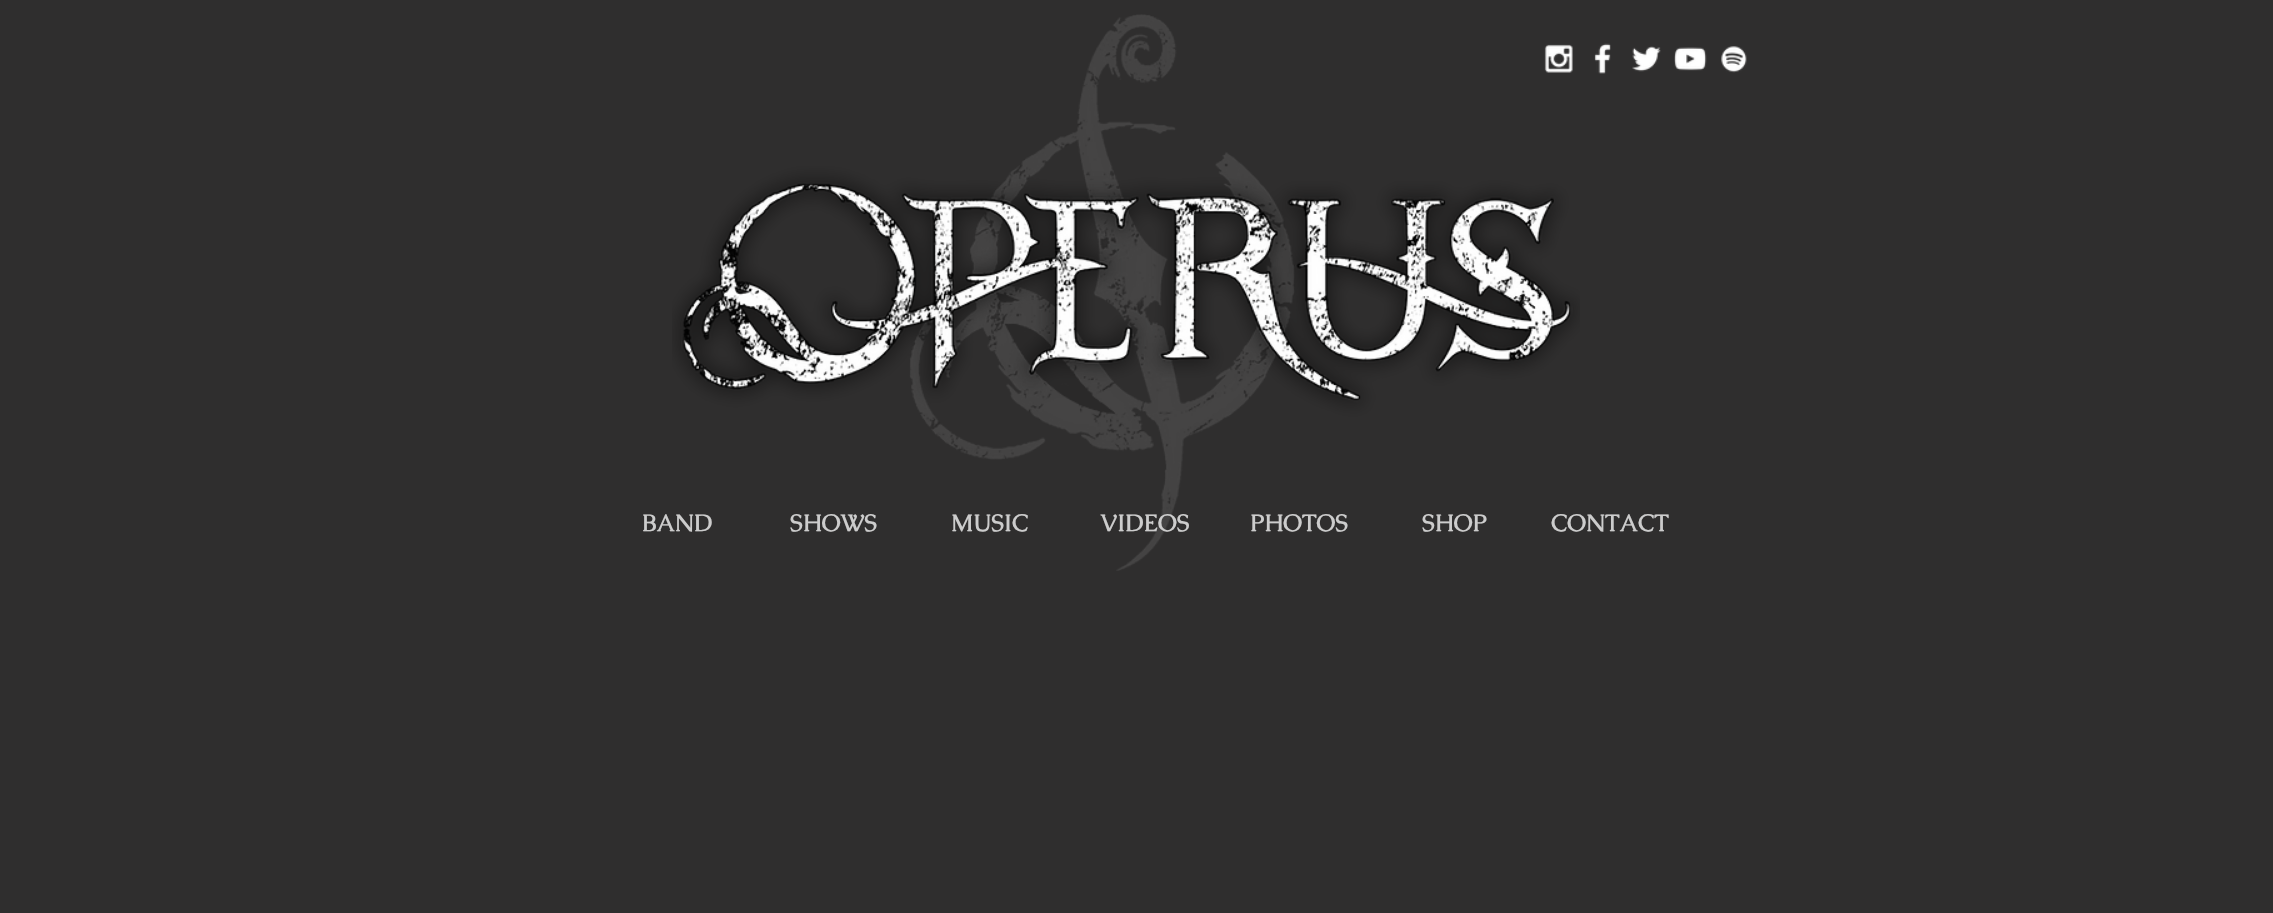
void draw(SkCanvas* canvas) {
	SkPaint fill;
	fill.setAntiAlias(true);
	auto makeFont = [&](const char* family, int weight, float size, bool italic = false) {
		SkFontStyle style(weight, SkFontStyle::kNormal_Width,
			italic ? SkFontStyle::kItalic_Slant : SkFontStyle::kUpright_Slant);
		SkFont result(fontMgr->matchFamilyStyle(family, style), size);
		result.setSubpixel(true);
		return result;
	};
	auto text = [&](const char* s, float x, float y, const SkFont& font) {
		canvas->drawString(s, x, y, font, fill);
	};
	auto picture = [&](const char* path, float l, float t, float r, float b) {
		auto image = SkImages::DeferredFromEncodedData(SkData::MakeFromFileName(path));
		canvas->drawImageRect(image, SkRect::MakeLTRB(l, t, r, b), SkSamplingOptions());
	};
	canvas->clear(0xFF2F2E2E);
	picture("image0.png", 672, 14, 1580, 571);
	picture("image1.png", 1544, 44, 1573, 73);
	picture("image2.png", 1594, 43, 1611, 74);
	picture("image3.png", 1632, 46, 1661, 72);
	picture("image4.png", 1674, 47, 1707, 71);
	picture("image5.png", 1721, 46, 1747, 73);
	auto font1 = makeFont("Caudex", 700, 23.75f);
	fill.setColor(0xFFCCCCCC);
	text("BAND", 642, 531, font1);
	text("SHOWS", 790, 531, font1);
	text("MUSIC", 951, 531, font1);
	text("VIDEOS", 1100, 531, font1);
	text("PHOTOS", 1250, 531, font1);
	text("SHOP", 1422, 531, font1);
	text("CONTACT", 1551, 531, font1);
}
